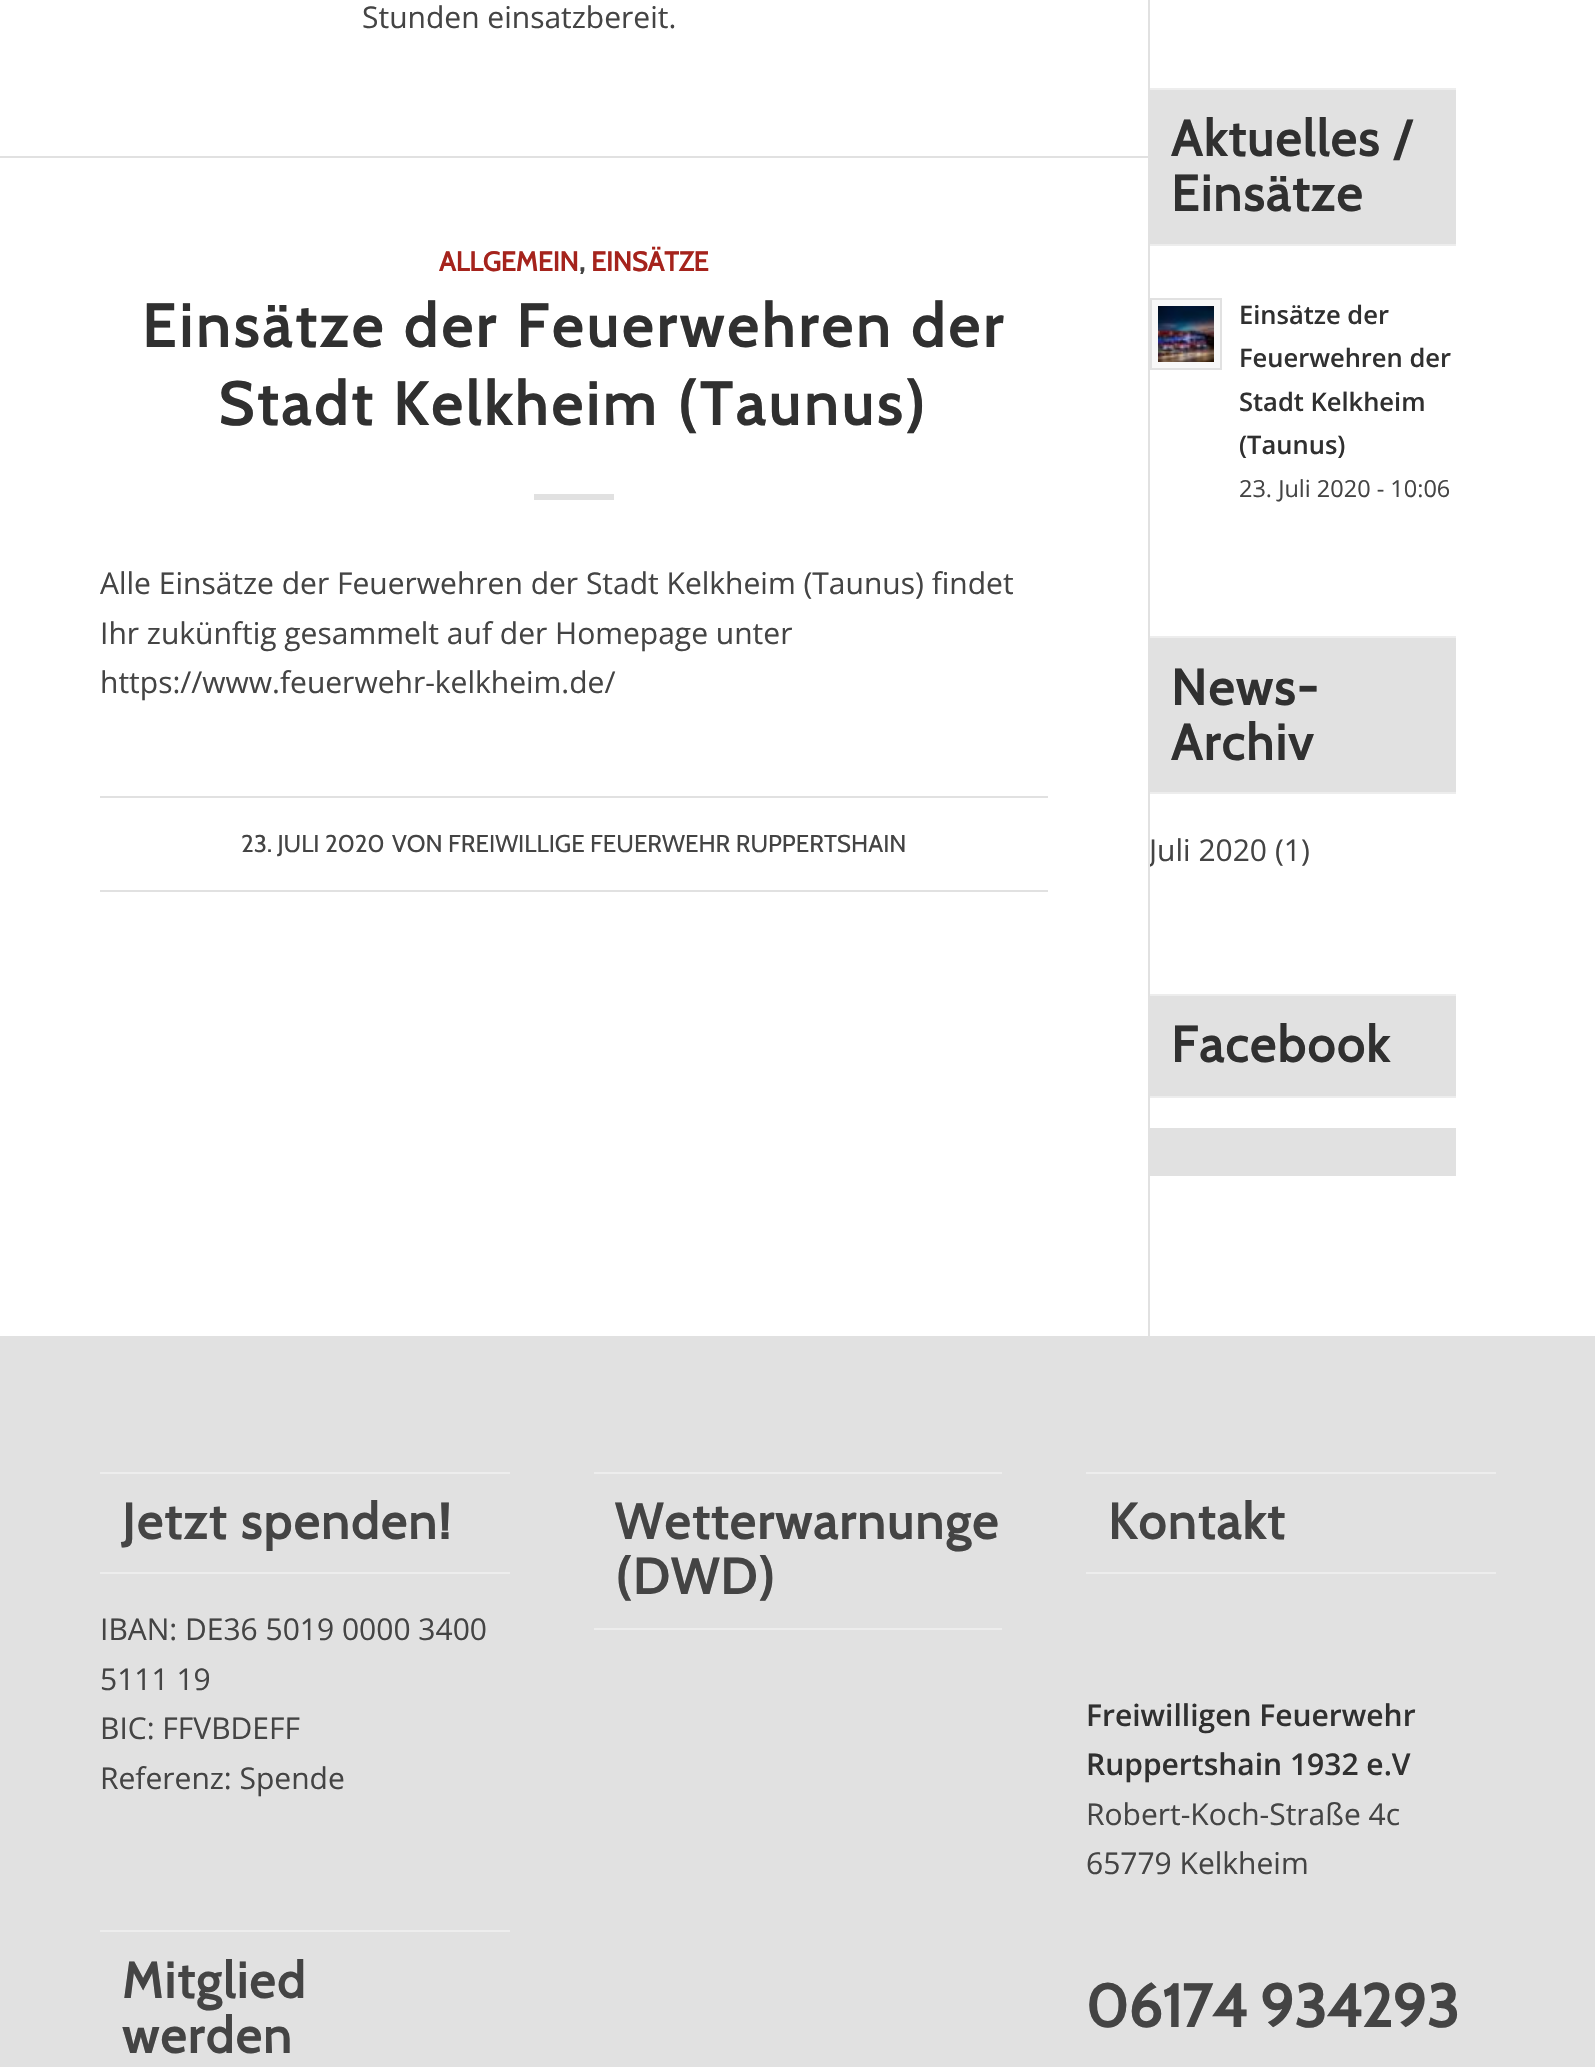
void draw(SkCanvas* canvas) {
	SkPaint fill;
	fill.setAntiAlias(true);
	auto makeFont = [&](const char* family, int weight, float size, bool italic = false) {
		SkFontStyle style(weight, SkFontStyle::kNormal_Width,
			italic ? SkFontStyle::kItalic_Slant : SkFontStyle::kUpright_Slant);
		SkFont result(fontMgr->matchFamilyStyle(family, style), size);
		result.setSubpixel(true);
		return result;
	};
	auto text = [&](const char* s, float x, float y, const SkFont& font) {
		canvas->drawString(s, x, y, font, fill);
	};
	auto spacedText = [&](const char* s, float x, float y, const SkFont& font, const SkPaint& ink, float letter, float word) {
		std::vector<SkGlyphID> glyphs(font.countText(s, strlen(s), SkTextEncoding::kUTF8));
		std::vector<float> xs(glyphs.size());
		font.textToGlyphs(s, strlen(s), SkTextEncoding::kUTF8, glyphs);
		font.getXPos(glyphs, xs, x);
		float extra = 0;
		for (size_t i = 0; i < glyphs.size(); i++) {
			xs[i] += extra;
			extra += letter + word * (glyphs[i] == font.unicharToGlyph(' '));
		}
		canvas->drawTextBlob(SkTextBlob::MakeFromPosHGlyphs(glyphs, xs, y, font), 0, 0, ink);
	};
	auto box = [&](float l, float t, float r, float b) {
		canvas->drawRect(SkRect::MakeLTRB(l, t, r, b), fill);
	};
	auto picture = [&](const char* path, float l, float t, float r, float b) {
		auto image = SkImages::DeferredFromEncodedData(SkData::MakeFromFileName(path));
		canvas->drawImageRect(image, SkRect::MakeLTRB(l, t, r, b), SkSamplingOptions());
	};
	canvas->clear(0xFFFFFFFF);
	fill.setColor(0xFFE1E1E1);
	box(0, 156, 1148, 158);
	box(534, 494, 614, 500);
	box(100, 796, 1048, 798);
	box(100, 890, 1048, 892);
	box(1148, 0, 1150, 1336);
	box(1150, 90, 1456, 244);
	fill.setColor(0xFFEDEDED);
	box(1150, 88, 1456, 90);
	box(1150, 244, 1456, 246);
	fill.setColor(0xFFF8F8F8);
	canvas->drawRect(SkRect::MakeLTRB(1151, 299, 1221, 369), fill);
	fill.setStyle(SkPaint::kStroke_Style);
	fill.setStrokeWidth(2);
	fill.setColor(0xFFE1E1E1);
	canvas->drawRect(SkRect::MakeLTRB(1151, 299, 1221, 369), fill);
	picture("image0.png", 1158, 306, 1214, 362);
	fill.setStyle(SkPaint::kFill_Style);
	box(1150, 638, 1456, 792);
	fill.setColor(0xFFEDEDED);
	box(1150, 636, 1456, 638);
	box(1150, 792, 1456, 794);
	fill.setColor(0xFFE1E1E1);
	box(1150, 996, 1456, 1096);
	fill.setColor(0xFFEDEDED);
	box(1150, 994, 1456, 996);
	box(1150, 1096, 1456, 1098);
	fill.setColor(0xFFE1E1E1);
	box(1150, 1128, 1456, 1176);
	box(0, 1336, 1595, 2067);
	fill.setColor(0xFFEDEDED);
	box(100, 1472, 510, 1474);
	box(100, 1572, 510, 1574);
	box(100, 1930, 510, 1932);
	box(594, 1472, 1002, 1474);
	box(594, 1628, 1002, 1630);
	box(1086, 1472, 1496, 1474);
	box(1086, 1572, 1496, 1574);
	auto font1 = makeFont("Open Sans", 400, 30);
	fill.setColor(0xFF444444);
	text("Stunden einsatzbereit.", 362, 28, font1);
	auto font2 = makeFont("Cabin", 700, 27);
	fill.setColor(0xFFA5231C);
	text("ALLGEMEIN", 439, 271, font2);
	fill.setColor(0xFF444444);
	text(",", 579, 271, font2);
	fill.setColor(0xFFA5231C);
	text("EINSÄTZE", 591, 271, font2);
	auto font3 = makeFont("Cabin", 700, 60);
	fill.setColor(0xFF303030);
	spacedText("Einsätze der Feuerwehren der", 142, 347, font3, fill, 4, 0);
	spacedText("Stadt Kelkheim (Taunus)", 218, 425, font3, fill, 4, 0);
	fill.setColor(0xFF444444);
	text("Alle Einsätze der Feuerwehren der Stadt Kelkheim (Taunus) findet", 100, 594, font1);
	text("Ihr zukünftig gesammelt auf der Homepage unter", 100, 644, font1);
	text("https://www.feuerwehr-kelkheim.de/", 100, 693, font1);
	auto font4 = makeFont("Cabin", 400, 24.3f);
	text("23. JULI 2020", 241, 852, font4);
	text("VON FREIWILLIGE FEUERWEHR RUPPERTSHAIN", 392, 852, font4);
	auto font5 = makeFont("Cabin", 700, 50);
	fill.setColor(0xFF303030);
	spacedText("Aktuelles /", 1171, 156, font5, fill, 2, 0);
	spacedText("Einsätze", 1171, 211, font5, fill, 2, 0);
	auto font6 = makeFont("Open Sans", 600, 25.5f);
	text("Einsätze der", 1239, 324, font6);
	text("Feuerwehren der", 1239, 367, font6);
	text("Stadt Kelkheim", 1239, 411, font6);
	text("(Taunus)", 1239, 454, font6);
	auto font7 = makeFont("Open Sans", 400, 23.5f);
	fill.setColor(0xFF444444);
	text("23. Juli 2020 - 10:06", 1239, 497, font7);
	fill.setColor(0xFF303030);
	spacedText("News-", 1171, 705, font5, fill, 2, 0);
	spacedText("Archiv", 1171, 760, font5, fill, 2, 0);
	canvas->save();
	canvas->clipRect(SkRect::MakeLTRB(1150, 0, 1496, 1336));
	fill.setColor(0xFF444444);
	text("Juli 2020", 1149, 861, font1);
	canvas->restore();
	text("(1)", 1275, 861, font1);
	fill.setColor(0xFF303030);
	spacedText("Facebook", 1171, 1062, font5, fill, 2, 0);
	fill.setColor(0xFF444444);
	spacedText("Jetzt spenden!", 122, 1539, font5, fill, 2, 0);
	text("IBAN: DE36 5019 0000 3400", 100, 1640, font1);
	text("5111 19", 100, 1690, font1);
	text("BIC: FFVBDEFF", 100, 1739, font1);
	text("Referenz: Spende", 100, 1789, font1);
	spacedText("Mitglied", 122, 1998, font5, fill, 2, 0);
	spacedText("werden", 122, 2053, font5, fill, 2, 0);
	spacedText("Wetterwarnunge", 615, 1539, font5, fill, 2, 0);
	spacedText("(DWD)", 615, 1594, font5, fill, 2, 0);
	spacedText("Kontakt", 1108, 1539, font5, fill, 2, 0);
	auto font8 = makeFont("Open Sans", 600, 30);
	fill.setColor(0xFF303030);
	text("Freiwilligen Feuerwehr", 1086, 1726, font8);
	text("Ruppertshain 1932 e.V", 1086, 1775, font8);
	fill.setColor(0xFF444444);
	text("Robert-Koch-Straße 4c", 1086, 1825, font1);
	text("65779 Kelkheim", 1086, 1874, font1);
	text("06174 934293", 1086, 2027, font3);
}
